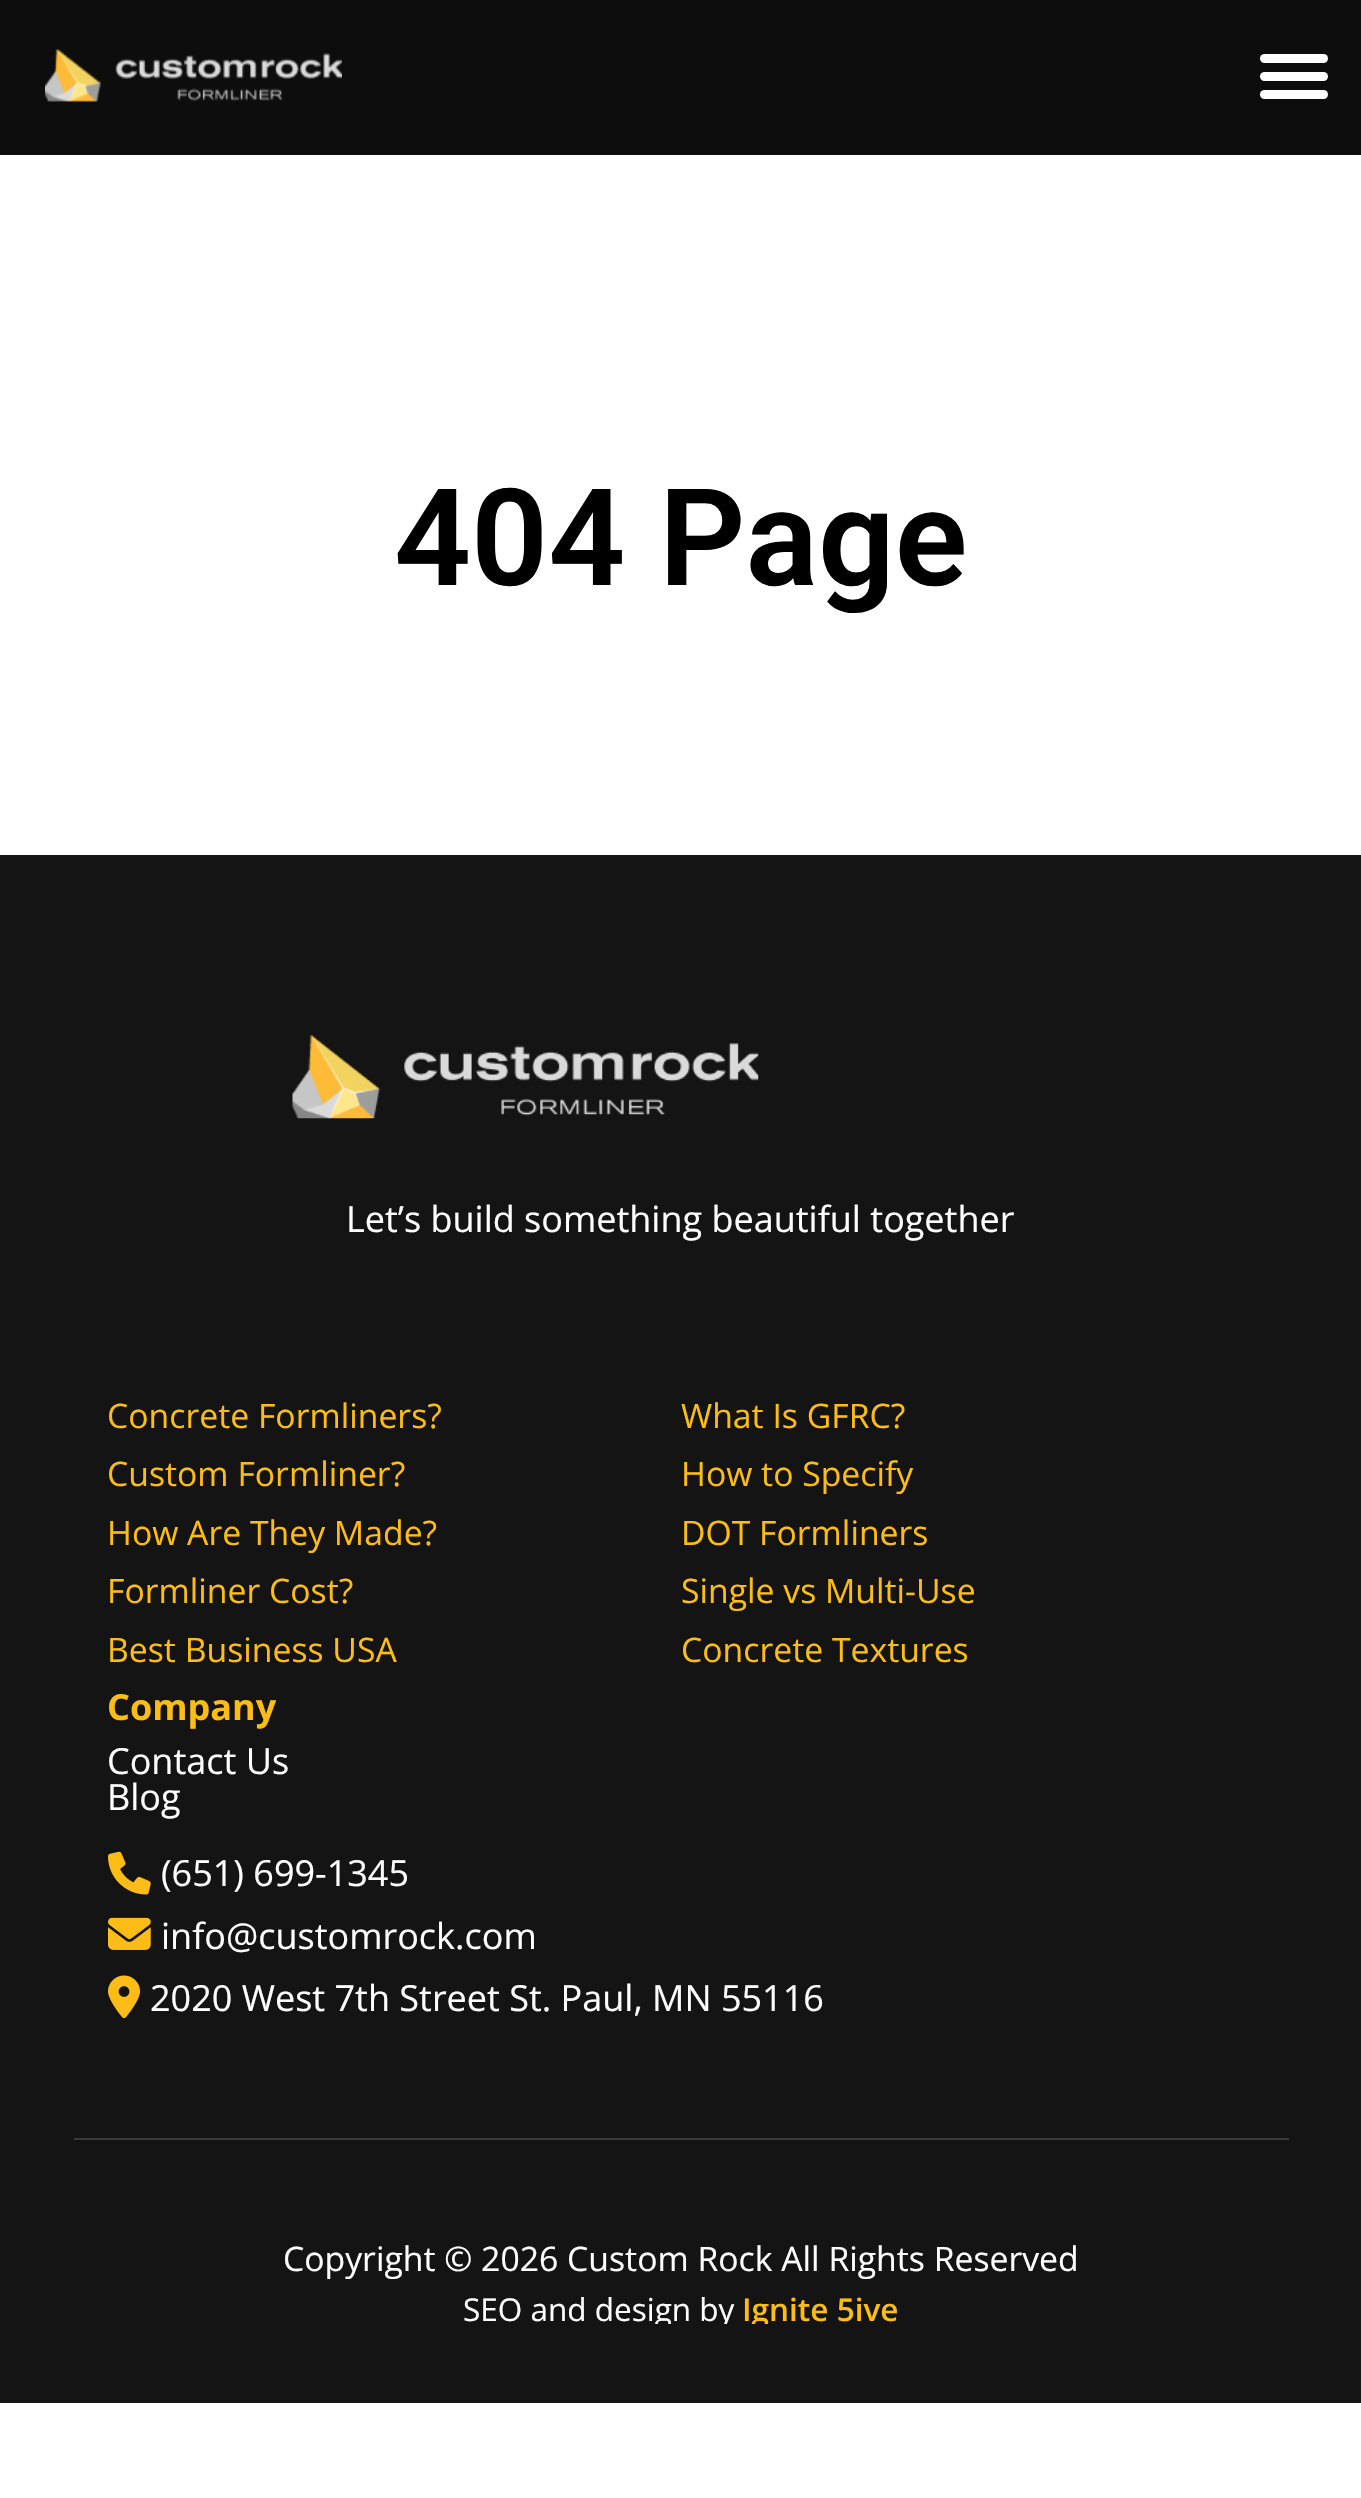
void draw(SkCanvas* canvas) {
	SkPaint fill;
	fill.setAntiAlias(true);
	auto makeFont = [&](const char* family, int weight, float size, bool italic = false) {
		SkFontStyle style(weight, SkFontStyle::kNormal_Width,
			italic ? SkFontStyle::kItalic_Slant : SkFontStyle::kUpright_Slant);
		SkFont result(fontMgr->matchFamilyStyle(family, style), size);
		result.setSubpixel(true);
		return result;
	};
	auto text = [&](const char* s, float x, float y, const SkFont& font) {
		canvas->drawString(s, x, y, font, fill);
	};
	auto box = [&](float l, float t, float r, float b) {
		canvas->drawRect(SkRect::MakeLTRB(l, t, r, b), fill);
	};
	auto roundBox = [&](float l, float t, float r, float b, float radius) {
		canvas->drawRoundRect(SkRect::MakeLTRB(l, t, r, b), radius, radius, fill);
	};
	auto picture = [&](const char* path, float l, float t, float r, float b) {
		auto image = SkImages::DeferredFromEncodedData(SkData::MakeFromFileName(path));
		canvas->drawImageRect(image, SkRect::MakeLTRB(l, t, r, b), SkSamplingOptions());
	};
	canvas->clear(0xFFFFFFFF);
	fill.setColor(0xFF0D0D0D);
	box(0, 0, 1361, 155);
	picture("image0.png", 45, 49, 342, 102);
	fill.setColor(0xFFFFFFFF);
	roundBox(1260, 54, 1328, 63, 4.5f);
	roundBox(1260, 72, 1328, 81, 4.5f);
	roundBox(1260, 90, 1328, 99, 4.5f);
	fill.setColor(0xFF141414);
	box(0, 855, 1361, 2403);
	picture("image1.png", 292, 1035, 759, 1119);
	picture("image2.png", 108, 1851, 151, 1895);
	picture("image3.png", 108, 1917, 151, 1950);
	picture("image4.png", 108, 1975, 141, 2019);
	fill.setColor(0xFF383838);
	box(74, 2138, 1289, 2140);
	auto font1 = makeFont("Roboto", 600, 135);
	fill.setColor(0xFF000000);
	text("404 Page", 394, 585, font1);
	auto font2 = makeFont("Open Sans", 400, 36);
	fill.setColor(0xFFFFFFFF);
	text("Let’s build something beautiful together", 346, 1232, font2);
	auto font3 = makeFont("Open Sans", 400, 33.75f);
	fill.setColor(0xFFFEBD16);
	text("Concrete Formliners?", 107, 1428, font3);
	text("Custom Formliner?", 107, 1486, font3);
	text("How Are They Made?", 107, 1545, font3);
	text("Formliner Cost?", 107, 1603, font3);
	text("Best Business USA", 107, 1662, font3);
	text("What Is GFRC?", 681, 1428, font3);
	text("How to Specify", 681, 1486, font3);
	text("DOT Formliners", 681, 1545, font3);
	text("Single vs Multi-Use", 681, 1603, font3);
	text("Concrete Textures", 681, 1662, font3);
	auto font4 = makeFont("Open Sans", 700, 36);
	text("Company", 107, 1720, font4);
	fill.setColor(0xFFFFFFFF);
	text("Contact Us", 107, 1774, font2);
	text("Blog", 107, 1810, font2);
	text("(651) 699-1345", 161, 1886, font2);
	text("info@customrock.com", 161, 1949, font2);
	text("2020 West 7th Street St. Paul, MN 55116", 150, 2011, font2);
	text("Copyright © 2026 Custom Rock All Rights Reserved", 283, 2271, font3);
	canvas->save();
	canvas->clipRect(SkRect::MakeLTRB(74, 2140, 1289, 2324));
	auto font5 = makeFont("Open Sans", 400, 31.5f);
	text("SEO and design by", 463, 2321, font5);
	auto font6 = makeFont("Open Sans", 600, 31.5f);
	fill.setColor(0xFFFEBD16);
	text("Ignite 5ive", 742, 2321, font6);
	canvas->restore();
}
